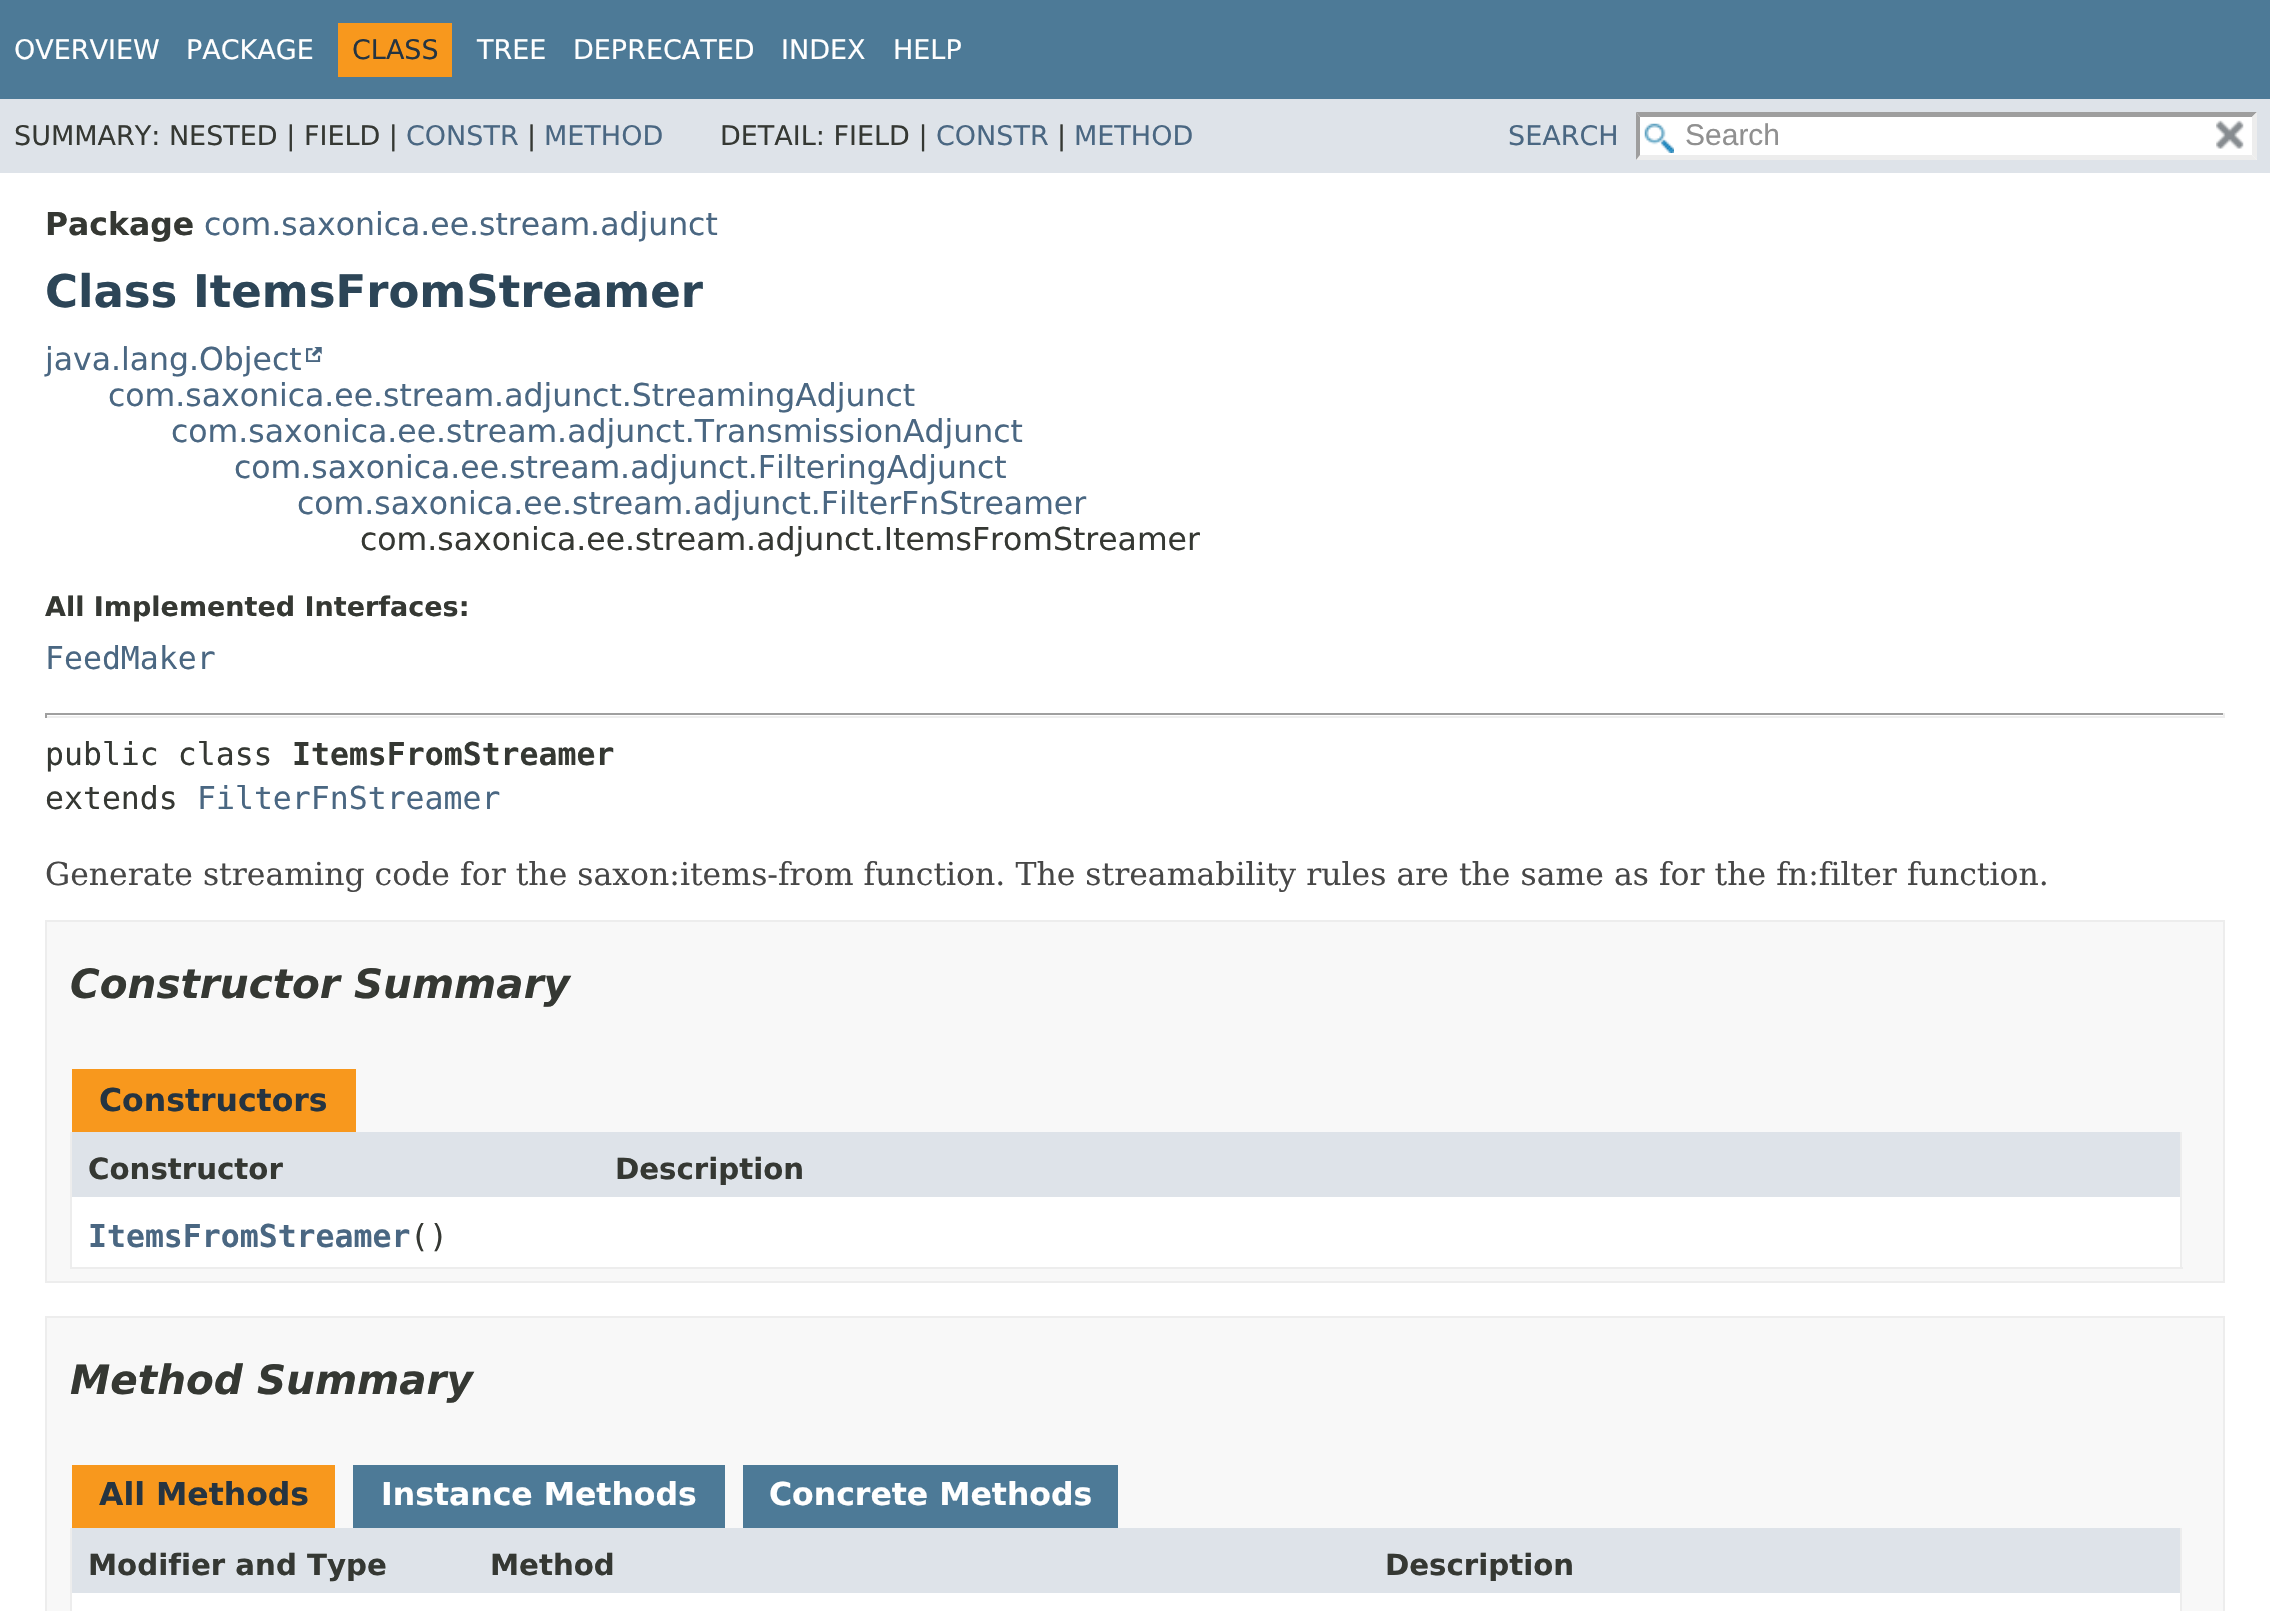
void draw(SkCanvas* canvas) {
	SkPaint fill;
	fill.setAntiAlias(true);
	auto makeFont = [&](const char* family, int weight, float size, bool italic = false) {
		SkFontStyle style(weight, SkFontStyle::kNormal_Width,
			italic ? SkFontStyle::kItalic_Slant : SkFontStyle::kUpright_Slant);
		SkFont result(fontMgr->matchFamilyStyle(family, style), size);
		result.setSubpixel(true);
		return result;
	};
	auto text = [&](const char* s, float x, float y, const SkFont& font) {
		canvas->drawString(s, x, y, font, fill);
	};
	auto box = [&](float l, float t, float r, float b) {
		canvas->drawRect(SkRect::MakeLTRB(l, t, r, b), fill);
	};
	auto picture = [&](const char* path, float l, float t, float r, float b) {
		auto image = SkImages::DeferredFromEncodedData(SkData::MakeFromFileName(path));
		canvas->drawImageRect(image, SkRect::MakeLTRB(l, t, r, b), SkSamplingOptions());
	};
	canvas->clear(0xFFFFFFFF);
	fill.setColor(0xFF4D7A97);
	box(0, 0, 2270, 99);
	fill.setColor(0xFFF8981D);
	box(338, 23, 452, 77);
	fill.setColor(0xFFDEE3E9);
	box(0, 99, 2270, 173);
	fill.setColor(0xFFFFFFFF);
	box(1636, 113, 2257, 160);
	picture("image0.png", 1644, 123, 1674, 153);
	fill.setColor(0xFF9E9E9E);
	canvas->drawPath(SkPathBuilder().moveTo(1636, 112).lineTo(2257, 112).lineTo(2252, 117).lineTo(1640, 117).close().detach(), fill);
	fill.setColor(0xFFEDEDED);
	canvas->drawPath(SkPathBuilder().moveTo(2257, 112).lineTo(2257, 160).lineTo(2252, 155).lineTo(2252, 117).close().detach(), fill);
	canvas->drawPath(SkPathBuilder().moveTo(2257, 160).lineTo(1636, 160).lineTo(1640, 155).lineTo(2252, 155).close().detach(), fill);
	fill.setColor(0xFF9E9E9E);
	canvas->drawPath(SkPathBuilder().moveTo(1636, 160).lineTo(1636, 112).lineTo(1640, 117).lineTo(1640, 155).close().detach(), fill);
	picture("image1.png", 2216, 120, 2244, 149);
	picture("image2.png", 306, 347, 322, 362);
	fill.setColor(0xFF9F9F9F);
	box(45, 713, 2225, 715);
	fill.setColor(0xFFEEEEEE);
	box(2223, 713, 2225, 718);
	box(45, 716, 2225, 718);
	fill.setColor(0xFF9F9F9F);
	box(45, 713, 47, 718);
	fill.setColor(0xFFF8F8F8);
	canvas->drawRect(SkRect::MakeLTRB(46, 921, 2224, 1282), fill);
	fill.setStyle(SkPaint::kStroke_Style);
	fill.setStrokeWidth(2);
	fill.setColor(0xFFEDEDED);
	canvas->drawRect(SkRect::MakeLTRB(46, 921, 2224, 1282), fill);
	fill.setStyle(SkPaint::kFill_Style);
	fill.setColor(0xFFF8981D);
	box(72, 1069, 356, 1132);
	fill.setColor(0xFFEDEDED);
	box(2180, 1132, 2182, 1269);
	box(70, 1267, 2183, 1269);
	box(70, 1132, 72, 1269);
	fill.setColor(0xFFDEE3E9);
	box(72, 1132, 2180, 1197);
	fill.setColor(0xFFFFFFFF);
	box(72, 1197, 2180, 1267);
	fill.setColor(0xFFF8F8F8);
	canvas->drawRect(SkRect::MakeLTRB(46, 1317, 2224, 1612), fill);
	fill.setStyle(SkPaint::kStroke_Style);
	fill.setColor(0xFFEDEDED);
	canvas->drawRect(SkRect::MakeLTRB(46, 1317, 2224, 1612), fill);
	fill.setStyle(SkPaint::kFill_Style);
	fill.setColor(0xFFF8981D);
	box(72, 1465, 335, 1528);
	fill.setColor(0xFF4D7A97);
	box(353, 1465, 725, 1528);
	box(743, 1465, 1118, 1528);
	fill.setColor(0xFFEDEDED);
	box(2180, 1528, 2182, 1611);
	box(70, 1528, 72, 1611);
	fill.setColor(0xFFDEE3E9);
	box(72, 1528, 2180, 1593);
	fill.setColor(0xFFFFFFFF);
	box(72, 1593, 2180, 1611);
	auto font1 = makeFont("DejaVu Sans", 400, 27);
	text("OVERVIEW", 14, 59, font1);
	text("PACKAGE", 186, 59, font1);
	fill.setColor(0xFF253441);
	text("CLASS", 352, 59, font1);
	fill.setColor(0xFFFFFFFF);
	text("TREE", 477, 59, font1);
	text("DEPRECATED", 573, 59, font1);
	text("INDEX", 781, 59, font1);
	text("HELP", 893, 59, font1);
	fill.setColor(0xFF353833);
	text("SUMMARY: NESTED | FIELD |", 14, 145, font1);
	fill.setColor(0xFF4A6782);
	text("CONSTR", 406, 145, font1);
	fill.setColor(0xFF353833);
	text("|", 527, 145, font1);
	fill.setColor(0xFF4A6782);
	text("METHOD", 544, 145, font1);
	fill.setColor(0xFF353833);
	text("DETAIL: FIELD |", 720, 145, font1);
	fill.setColor(0xFF4A6782);
	text("CONSTR", 936, 145, font1);
	fill.setColor(0xFF353833);
	text("|", 1057, 145, font1);
	fill.setColor(0xFF4A6782);
	text("METHOD", 1074, 145, font1);
	text("SEARCH", 1508, 145, font1);
	auto font2 = makeFont("Liberation Sans", 400, 30);
	fill.setColor(0xFF909090);
	text("Search", 1685, 145, font2);
	auto font3 = makeFont("DejaVu Sans", 700, 31.5f);
	fill.setColor(0xFF353833);
	text("Package", 45, 235, font3);
	auto font4 = makeFont("DejaVu Sans", 400, 31.5f);
	fill.setColor(0xFF4A6782);
	text("com.saxonica.ee.stream.adjunct", 204, 235, font4);
	auto font5 = makeFont("DejaVu Sans", 700, 45);
	fill.setColor(0xFF2C4557);
	text("Class ItemsFromStreamer", 45, 307, font5);
	fill.setColor(0xFF4A6782);
	text("java.lang.Object", 45, 370, font4);
	text("com.saxonica.ee.stream.adjunct.StreamingAdjunct", 108, 406, font4);
	text("com.saxonica.ee.stream.adjunct.TransmissionAdjunct", 171, 442, font4);
	text("com.saxonica.ee.stream.adjunct.FilteringAdjunct", 234, 478, font4);
	text("com.saxonica.ee.stream.adjunct.FilterFnStreamer", 297, 514, font4);
	fill.setColor(0xFF353833);
	text("com.saxonica.ee.stream.adjunct.ItemsFromStreamer", 360, 550, font4);
	auto font6 = makeFont("DejaVu Sans", 700, 27);
	text("All Implemented Interfaces:", 45, 616, font6);
	auto font7 = makeFont("DejaVu Sans Mono", 400, 31.5f);
	fill.setColor(0xFF4A6782);
	text("FeedMaker", 45, 669, font7);
	fill.setColor(0xFF353833);
	text("public class", 45, 765, font7);
	auto font8 = makeFont("DejaVu Sans Mono", 700, 31.5f);
	text("ItemsFromStreamer", 292, 765, font8);
	text("extends", 45, 809, font7);
	fill.setColor(0xFF4A6782);
	text("FilterFnStreamer", 197, 809, font7);
	auto font9 = makeFont("DejaVu Serif", 400, 31.5f);
	fill.setColor(0xFF474747);
	text("Generate streaming code for the saxon:items-from function. The streamability rules are the same as for the fn:filter function.", 45, 885, font9);
	auto font10 = makeFont("DejaVu Sans", 700, 40.5f, true);
	fill.setColor(0xFF353833);
	text("Constructor Summary", 70, 998, font10);
	fill.setColor(0xFF253441);
	text("Constructors", 99, 1111, font3);
	auto font11 = makeFont("DejaVu Sans", 700, 29.25f);
	fill.setColor(0xFF353833);
	text("Constructor", 88, 1179, font11);
	text("Description", 615, 1179, font11);
	fill.setColor(0xFF4A6782);
	text("ItemsFromStreamer", 88, 1247, font8);
	fill.setColor(0xFF353833);
	text("()", 410, 1247, font7);
	text("Method Summary", 70, 1394, font10);
	fill.setColor(0xFF253441);
	text("All Methods", 99, 1505, font3);
	fill.setColor(0xFFFFFFFF);
	text("Instance Methods", 381, 1505, font3);
	text("Concrete Methods", 769, 1505, font3);
	fill.setColor(0xFF353833);
	text("Modifier and Type", 88, 1575, font11);
	text("Method", 490, 1575, font11);
	text("Description", 1385, 1575, font11);
}
